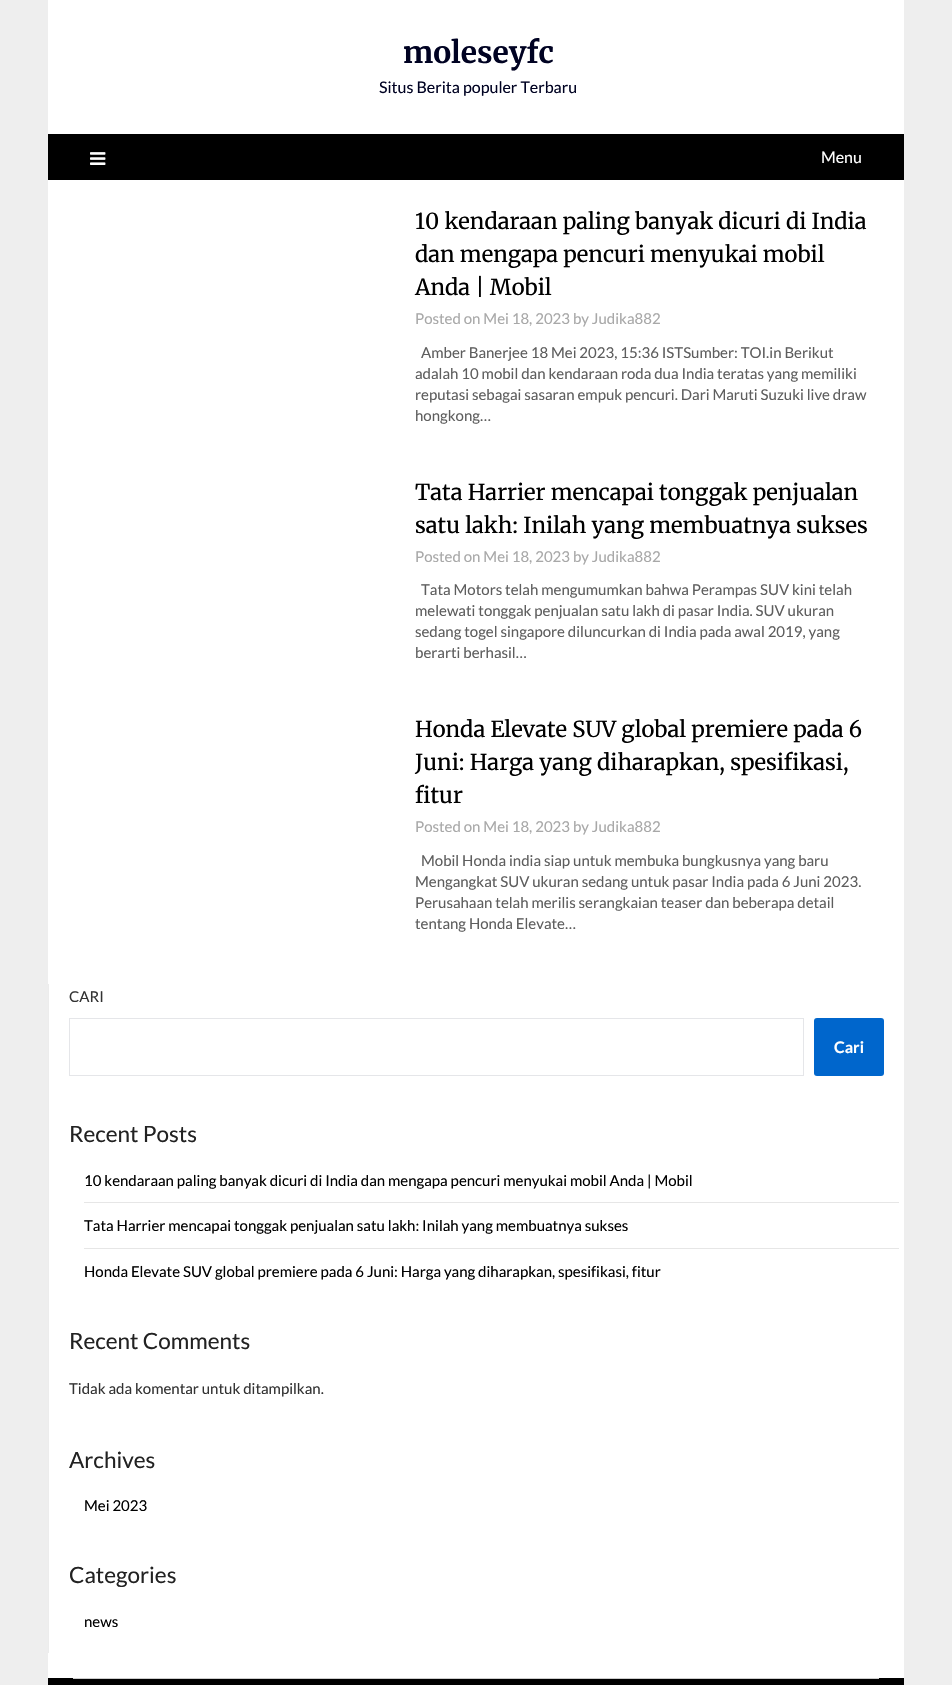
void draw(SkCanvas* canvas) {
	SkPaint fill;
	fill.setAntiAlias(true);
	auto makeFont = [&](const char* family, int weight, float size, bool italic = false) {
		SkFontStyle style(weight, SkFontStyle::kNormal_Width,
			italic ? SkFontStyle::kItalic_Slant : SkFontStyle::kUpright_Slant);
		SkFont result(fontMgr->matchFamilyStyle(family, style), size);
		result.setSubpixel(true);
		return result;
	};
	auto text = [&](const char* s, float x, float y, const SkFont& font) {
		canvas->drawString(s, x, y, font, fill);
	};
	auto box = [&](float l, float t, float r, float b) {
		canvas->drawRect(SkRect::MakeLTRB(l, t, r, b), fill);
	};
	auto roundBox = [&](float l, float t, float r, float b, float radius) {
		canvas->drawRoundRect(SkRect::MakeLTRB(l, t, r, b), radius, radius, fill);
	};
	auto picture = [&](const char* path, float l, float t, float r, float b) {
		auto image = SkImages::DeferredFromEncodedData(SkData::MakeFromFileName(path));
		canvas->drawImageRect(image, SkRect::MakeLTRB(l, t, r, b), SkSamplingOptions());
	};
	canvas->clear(0xFFEEEEEE);
	fill.setColor(0xFFFFFFFF);
	box(48, 0, 904, 134);
	fill.setColor(0xFF000000);
	box(48, 134, 904, 180);
	picture("image0.png", 90, 152, 106, 165);
	fill.setColor(0xFFFFFFFF);
	box(48, 180, 904, 1678);
	fill.setColor(0xFFECECEC);
	box(48, 984, 49, 1653);
	fill.setStyle(SkPaint::kStroke_Style);
	fill.setStrokeWidth(1);
	fill.setColor(0xFFE5E6E9);
	canvas->drawRect(SkRect::MakeLTRB(69.5f, 1018.5f, 803.5f, 1075.5f), fill);
	fill.setStyle(SkPaint::kFill_Style);
	fill.setColor(0xFF0066CC);
	roundBox(814, 1018, 884, 1076, 3);
	fill.setColor(0xFFE6E6E6);
	box(84, 1202, 899, 1203);
	box(84, 1248, 899, 1249);
	fill.setColor(0xFF000000);
	box(48, 1678, 904, 1685);
	fill.setColor(0xFFCCCCCC);
	box(73, 1678, 879, 1679);
	auto font1 = makeFont("Merriweather", 700, 30);
	fill.setColor(0xFF000222);
	text("moleseyfc", 403, 63, font1);
	auto font2 = makeFont("Lato", 400, 16);
	text("Situs Berita populer Terbaru", 379, 93, font2);
	fill.setColor(0xFFFFFFFF);
	text("Menu", 821, 163, font2);
	auto font3 = makeFont("Merriweather", 400, 22);
	fill.setColor(0xFF000000);
	text("10 kendaraan paling banyak dicuri di India", 415, 229, font3);
	text("dan mengapa pencuri menyukai mobil", 415, 262, font3);
	text("Anda | Mobil", 415, 295, font3);
	auto font4 = makeFont("Lato", 400, 15);
	fill.setColor(0xFFA8A8A8);
	text("Posted on Mei 18, 2023 by Judika882", 415, 324, font4);
	fill.setColor(0xFF5E5E5E);
	text("Amber Banerjee 18 Mei 2023, 15:36 ISTSumber: TOI.in Berikut", 421, 358, font4);
	text("adalah 10 mobil dan kendaraan roda dua India teratas yang memiliki", 415, 379, font4);
	text("reputasi sebagai sasaran empuk pencuri. Dari Maruti Suzuki live draw", 415, 400, font4);
	text("hongkong…", 415, 421, font4);
	fill.setColor(0xFF000000);
	text("Tata Harrier mencapai tonggak penjualan", 415, 500, font3);
	text("satu lakh: Inilah yang membuatnya sukses", 415, 533, font3);
	fill.setColor(0xFFA8A8A8);
	text("Posted on Mei 18, 2023 by Judika882", 415, 562, font4);
	fill.setColor(0xFF5E5E5E);
	text("Tata Motors telah mengumumkan bahwa Perampas SUV kini telah", 421, 595, font4);
	text("melewati tonggak penjualan satu lakh di pasar India. SUV ukuran", 415, 616, font4);
	text("sedang togel singapore diluncurkan di India pada awal 2019, yang", 415, 637, font4);
	text("berarti berhasil…", 415, 658, font4);
	fill.setColor(0xFF000000);
	text("Honda Elevate SUV global premiere pada 6", 415, 737, font3);
	text("Juni: Harga yang diharapkan, spesifikasi,", 415, 770, font3);
	text("fitur", 415, 803, font3);
	fill.setColor(0xFFA8A8A8);
	text("Posted on Mei 18, 2023 by Judika882", 415, 832, font4);
	fill.setColor(0xFF5E5E5E);
	text("Mobil Honda india siap untuk membuka bungkusnya yang baru", 421, 866, font4);
	text("Mengangkat SUV ukuran sedang untuk pasar India pada 6 Juni 2023.", 415, 887, font4);
	text("Perusahaan telah merilis serangkaian teaser dan beberapa detail", 415, 908, font4);
	text("tentang Honda Elevate…", 415, 929, font4);
	fill.setColor(0xFF333333);
	text("CARI", 69, 1002, font4);
	auto font5 = makeFont("Lato", 700, 16);
	fill.setColor(0xFFFFFFFF);
	text("Cari", 834, 1053, font5);
	auto font6 = makeFont("Lato", 400, 22.5f);
	fill.setColor(0xFF222222);
	text("Recent Posts", 69, 1142, font6);
	fill.setColor(0xFF000000);
	text("10 kendaraan paling banyak dicuri di India dan mengapa pencuri menyukai mobil Anda | Mobil", 84, 1186, font4);
	text("Tata Harrier mencapai tonggak penjualan satu lakh: Inilah yang membuatnya sukses", 84, 1231, font4);
	text("Honda Elevate SUV global premiere pada 6 Juni: Harga yang diharapkan, spesifikasi, fitur", 84, 1277, font4);
	fill.setColor(0xFF222222);
	text("Recent Comments", 69, 1349, font6);
	fill.setColor(0xFF333333);
	text("Tidak ada komentar untuk ditampilkan.", 69, 1394, font4);
	fill.setColor(0xFF222222);
	text("Archives", 69, 1468, font6);
	fill.setColor(0xFF000000);
	text("Mei 2023", 84, 1511, font4);
	fill.setColor(0xFF222222);
	text("Categories", 69, 1583, font6);
	fill.setColor(0xFF000000);
	text("news", 84, 1627, font4);
}
